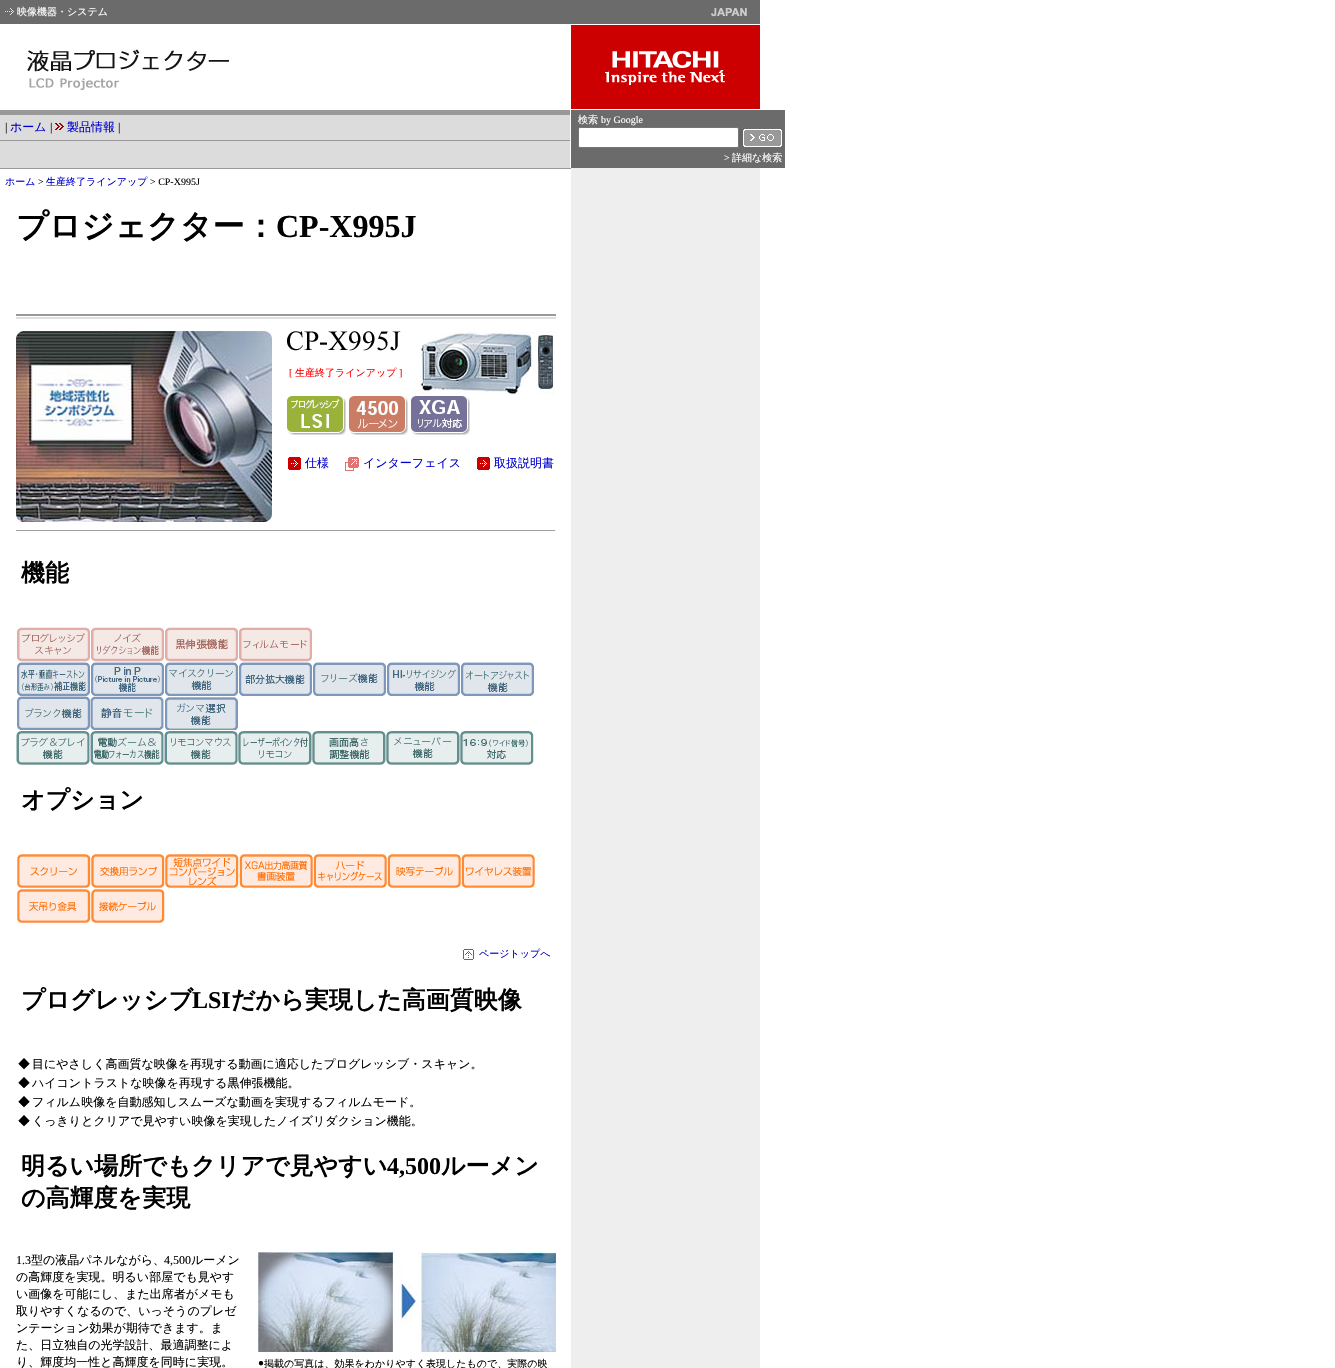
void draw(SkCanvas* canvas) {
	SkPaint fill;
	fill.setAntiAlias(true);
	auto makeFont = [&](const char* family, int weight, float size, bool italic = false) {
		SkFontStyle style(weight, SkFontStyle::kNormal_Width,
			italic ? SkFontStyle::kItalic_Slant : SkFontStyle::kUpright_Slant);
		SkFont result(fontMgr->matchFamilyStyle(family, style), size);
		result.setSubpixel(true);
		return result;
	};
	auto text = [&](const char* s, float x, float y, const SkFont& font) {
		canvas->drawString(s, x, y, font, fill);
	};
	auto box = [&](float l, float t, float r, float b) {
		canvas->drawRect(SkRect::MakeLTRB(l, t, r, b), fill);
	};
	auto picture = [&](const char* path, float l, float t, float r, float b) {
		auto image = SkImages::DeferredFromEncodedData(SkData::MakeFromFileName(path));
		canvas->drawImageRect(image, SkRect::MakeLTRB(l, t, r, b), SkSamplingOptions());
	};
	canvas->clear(0xFFFFFFFF);
	fill.setColor(0xFF6B6B6B);
	box(0, 0, 760, 24);
	picture("image0.png", 5, 8, 14, 15);
	picture("image1.png", 711, 8, 747, 17);
	picture("image2.png", 27, 49, 229, 90);
	picture("image3.png", 571, 25, 760, 109);
	fill.setColor(0xFFDCDCDC);
	box(0, 115, 570, 168);
	fill.setColor(0xFF999999);
	box(0, 110, 570, 115);
	picture("image4.png", 55, 123, 64, 130);
	box(0, 140, 570, 141);
	fill.setColor(0xFF6B6B6B);
	box(571, 110, 785, 168);
	fill.setColor(0xFFFFFFFF);
	canvas->drawRoundRect(SkRect::MakeLTRB(578.5f, 127.5f, 738.5f, 147.5f), 1.5f, 1.5f, fill);
	fill.setStyle(SkPaint::kStroke_Style);
	fill.setStrokeWidth(1);
	fill.setColor(0xFF767676);
	canvas->drawRoundRect(SkRect::MakeLTRB(578.5f, 127.5f, 738.5f, 147.5f), 1.5f, 1.5f, fill);
	picture("image5.png", 739, 129, 782, 147);
	fill.setStyle(SkPaint::kFill_Style);
	fill.setColor(0xFF999999);
	box(0, 168, 571, 169);
	box(16, 314, 556, 316);
	fill.setColor(0xFFDEDEDE);
	box(16, 317, 556, 319);
	picture("image6.png", 16, 331, 272, 522);
	picture("image7.png", 287, 331, 401, 351);
	picture("image8.png", 419, 331, 555, 395);
	picture("image9.png", 287, 396, 346, 435);
	picture("image10.png", 349, 396, 408, 435);
	picture("image11.png", 411, 396, 470, 435);
	picture("image12.png", 288, 457, 301, 470);
	picture("image13.png", 345, 457, 359, 471);
	picture("image12.png", 477, 457, 490, 470);
	fill.setColor(0xFF9F9F9F);
	box(16, 530, 556, 531);
	fill.setColor(0xFFEEEEEE);
	box(555, 530, 556, 531);
	picture("image14.png", 16, 627, 534, 765);
	picture("image15.png", 17, 854, 535, 923);
	picture("image16.png", 463, 949, 474, 960);
	picture("image17.png", 258, 1252, 556, 1352);
	box(571, 168, 760, 1368);
	auto font1 = makeFont("WenQuanYi Zen Hei", 500, 10);
	fill.setColor(0xFFFFFFFF);
	text("映像機器・システム", 17, 15, font1);
	auto font2 = makeFont("Liberation Serif", 400, 12);
	fill.setColor(0xFF000000);
	text("|", 5, 131, font2);
	auto font3 = makeFont("WenQuanYi Zen Hei", 500, 12);
	fill.setColor(0xFF0000CC);
	text("ホーム", 10, 131, font3);
	fill.setColor(0xFF000000);
	text("|", 50, 131, font2);
	fill.setColor(0xFF0000CC);
	text("製品情報", 67, 131, font3);
	fill.setColor(0xFF000000);
	text("|", 118, 131, font2);
	fill.setColor(0xFFFFFFFF);
	text("検索", 578, 123, font1);
	auto font4 = makeFont("Liberation Serif", 400, 10);
	text("by Google", 601, 123, font4);
	text(">", 724, 161, font4);
	text("詳細な検索", 732, 161, font1);
	fill.setColor(0xFF0000CC);
	text("ホーム", 5, 185, font1);
	fill.setColor(0xFF000000);
	text(">", 38, 185, font4);
	fill.setColor(0xFF0000CC);
	text("生産終了ラインアップ", 46, 185, font1);
	fill.setColor(0xFF000000);
	text("> CP-X995J", 150, 185, font4);
	auto font5 = makeFont("WenQuanYi Zen Hei", 700, 32);
	text("プロジェクター：", 16, 237, font5);
	auto font6 = makeFont("Liberation Serif", 700, 32);
	text("CP-X995J", 276, 237, font6);
	fill.setColor(0xFFFF0000);
	text("[", 289, 376, font4);
	text("生産終了ラインアップ", 295, 376, font1);
	text("]", 399, 376, font4);
	fill.setColor(0xFF0000CC);
	text("仕様", 305, 467, font3);
	text("インターフェイス", 363, 467, font3);
	text("取扱説明書", 494, 467, font3);
	auto font7 = makeFont("WenQuanYi Zen Hei", 700, 24);
	fill.setColor(0xFF000000);
	text("機能", 21, 581, font7);
	text("オプション", 21, 808, font7);
	fill.setColor(0xFF0000CC);
	text("ページトップへ", 479, 957, font1);
	fill.setColor(0xFF000000);
	text("プログレッシブ", 21, 1008, font7);
	auto font8 = makeFont("Liberation Serif", 700, 24);
	text("LSI", 192, 1008, font8);
	text("だから実現した高画質映像", 231, 1008, font7);
	text("◆", 18, 1068, font3);
	text("目にやさしく高画質な映像を再現する動画に適応したプログレッシブ・スキャン。", 32, 1068, font3);
	text("◆", 18, 1087, font3);
	text("ハイコントラストな映像を再現する黒伸張機能。", 32, 1087, font3);
	text("◆", 18, 1106, font3);
	text("フィルム映像を自動感知しスムーズな動画を実現するフィルムモード。", 32, 1106, font3);
	text("◆", 18, 1125, font3);
	text("くっきりとクリアで見やすい映像を実現したノイズリダクション機能。", 32, 1125, font3);
	text("明るい場所でもクリアで見やすい", 21, 1174, font7);
	text("4,500", 387, 1174, font8);
	text("ルーメン", 441, 1174, font7);
	text("の高輝度を実現", 21, 1206, font7);
	text("1.3", 16, 1264, font2);
	text("型の液晶パネルながら、", 31, 1264, font3);
	text("4,500", 164, 1264, font2);
	text("ルーメン", 191, 1264, font3);
	text("の高輝度を実現。明るい部屋でも見やす", 16, 1281, font3);
	text("い画像を可能にし、また出席者がメモも", 16, 1298, font3);
	text("取りやすくなるので、いっそうのプレゼ", 16, 1315, font3);
	text("ンテーション効果が期待できます。ま", 16, 1332, font3);
	text("た、日立独自の光学設計、最適調整によ", 16, 1349, font3);
	text("り、輝度均一性と高輝度を同時に実現。", 16, 1366, font3);
	text("●", 258, 1366, font4);
	text("掲載の写真は、効果をわかりやすく表現したもので、実際の映", 264, 1367, font1);
}
